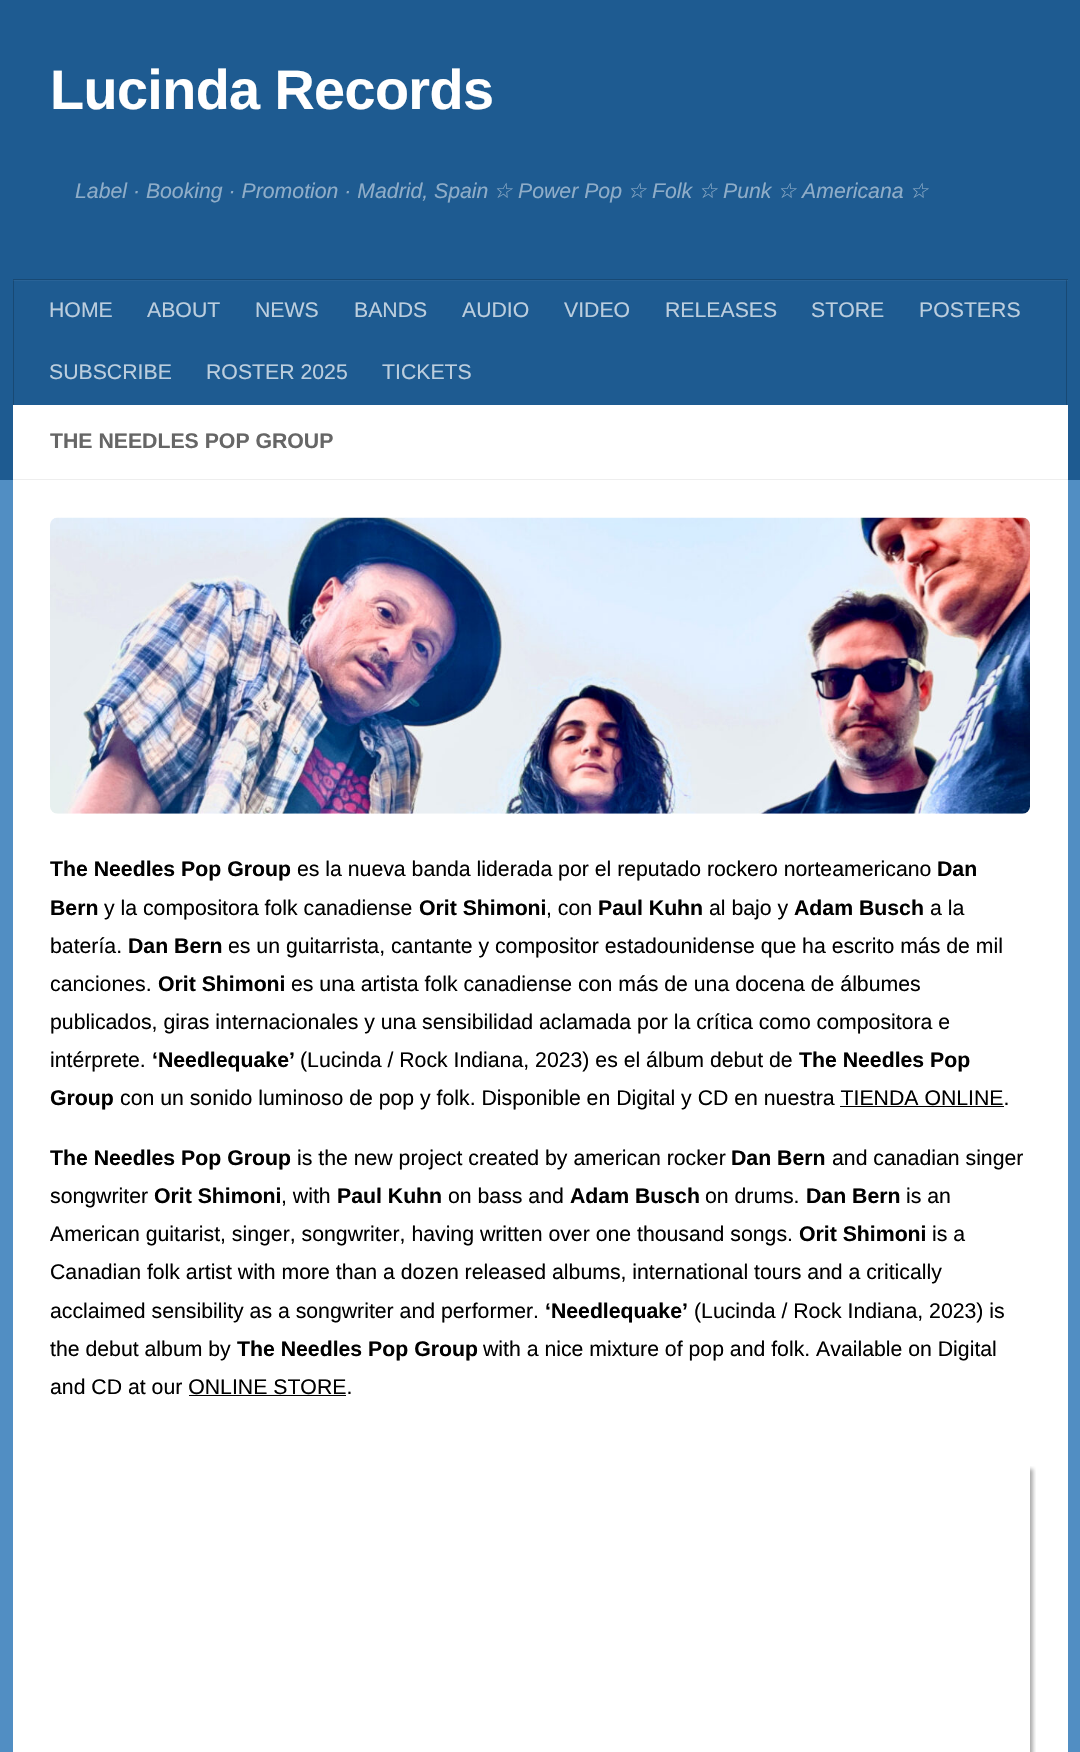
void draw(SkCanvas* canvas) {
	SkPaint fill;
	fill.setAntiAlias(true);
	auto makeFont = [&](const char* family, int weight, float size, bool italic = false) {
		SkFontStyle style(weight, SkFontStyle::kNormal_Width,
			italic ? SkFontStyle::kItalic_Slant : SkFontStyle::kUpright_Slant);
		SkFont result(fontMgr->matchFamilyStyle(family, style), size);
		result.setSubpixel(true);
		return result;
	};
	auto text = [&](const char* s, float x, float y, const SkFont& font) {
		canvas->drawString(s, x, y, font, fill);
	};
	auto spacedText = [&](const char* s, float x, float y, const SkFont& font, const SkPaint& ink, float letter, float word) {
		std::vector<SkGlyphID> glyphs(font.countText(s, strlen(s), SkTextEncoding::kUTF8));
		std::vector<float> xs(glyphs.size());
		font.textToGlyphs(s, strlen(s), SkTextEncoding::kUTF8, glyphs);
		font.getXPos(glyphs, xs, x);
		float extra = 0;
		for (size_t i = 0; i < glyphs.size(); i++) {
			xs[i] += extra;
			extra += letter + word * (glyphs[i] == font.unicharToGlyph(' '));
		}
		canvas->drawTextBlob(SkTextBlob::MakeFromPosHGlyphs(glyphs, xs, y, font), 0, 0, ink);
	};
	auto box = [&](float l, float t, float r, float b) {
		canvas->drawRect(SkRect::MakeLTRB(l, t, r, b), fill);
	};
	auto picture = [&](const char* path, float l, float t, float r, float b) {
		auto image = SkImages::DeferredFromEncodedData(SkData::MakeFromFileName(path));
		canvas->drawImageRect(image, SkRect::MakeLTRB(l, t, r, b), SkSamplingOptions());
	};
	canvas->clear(0xFF518EC3);
	fill.setColor(0xFF1E5B91);
	box(0, 0, 1080, 480);
	fill.setColor(0xFF296397);
	box(13, 280, 1068, 281);
	fill.setColor(0xFF184974);
	canvas->drawPath(SkPathBuilder().moveTo(13, 279).lineTo(13, 280).lineTo(1068, 280).lineTo(1068, 404).lineTo(1068, 279).close().detach(), fill);
	box(1066, 280, 1067, 405);
	fill.setColor(0xFF24527B);
	box(1066, 280, 1067, 281);
	fill.setColor(0xFF184974);
	box(13, 280, 14, 405);
	fill.setColor(0xFF24527B);
	box(13, 280, 14, 281);
	fill.setColor(0xFFFFFFFF);
	box(13, 405, 1068, 1752);
	fill.setColor(0xFFEEEEEE);
	box(13, 479, 1068, 480);
	picture("image0.png", 50, 517, 1030, 814);
	fill.setColor(0xFF000000);
	box(840, 1106, 1004, 1107);
	box(189, 1395, 346, 1396);
	canvas->save();
	canvas->clipRect(SkRect::MakeLTRB(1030, 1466, 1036, 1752));
	fill.setColor(0x590A0A0A);
	fill.setMaskFilter(SkMaskFilter::MakeBlur(kNormal_SkBlurStyle, 2));
	canvas->drawRect(SkRect::MakeLTRB(53, 1469, 1033, 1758), fill);
	fill.setMaskFilter(nullptr);
	canvas->restore();
	auto font1 = makeFont("Liberation Sans", 700, 55.75f);
	fill.setColor(0xFFFFFFFF);
	spacedText("Lucinda Records", 50, 109, font1, fill, -0.6f, 0);
	auto font2 = makeFont("Liberation Sans", 400, 21.25f, true);
	fill.setColor(0xFF8FADC8);
	text("Label · Booking · Promotion · Madrid, Spain", 75, 198, font2);
	auto font3 = makeFont("DejaVu Sans", 400, 21.25f, true);
	text("☆", 493, 198, font3);
	text("Power Pop", 518, 198, font2);
	text("☆", 627, 198, font3);
	text("Folk", 652, 198, font2);
	text("☆", 698, 198, font3);
	text("Punk", 723, 198, font2);
	text("☆", 777, 198, font3);
	text("Americana", 802, 198, font2);
	text("☆", 909, 198, font3);
	auto font4 = makeFont("Liberation Sans", 400, 21.25f);
	fill.setColor(0xFFBCCEDE);
	text("HOME", 49, 317, font4);
	text("ABOUT", 147, 317, font4);
	text("NEWS", 255, 317, font4);
	text("BANDS", 354, 317, font4);
	text("AUDIO", 462, 317, font4);
	text("VIDEO", 564, 317, font4);
	text("RELEASES", 665, 317, font4);
	text("STORE", 811, 317, font4);
	text("POSTERS", 919, 317, font4);
	text("SUBSCRIBE", 49, 379, font4);
	text("ROSTER 2025", 206, 379, font4);
	text("TICKETS", 382, 379, font4);
	auto font5 = makeFont("Liberation Sans", 700, 21.25f);
	fill.setColor(0xFF666666);
	text("THE NEEDLES POP GROUP", 50, 448, font5);
	fill.setColor(0xFF000000);
	text("The Needles Pop Group", 50, 876, font5);
	text("es la nueva banda liderada por el reputado rockero norteamericano", 297, 876, font4);
	text("Dan", 937, 876, font5);
	text("Bern", 50, 915, font5);
	text("y la compositora folk canadiense", 104, 915, font4);
	text("Orit Shimoni", 419, 915, font5);
	text(", con", 546, 915, font4);
	text("Paul Kuhn", 598, 915, font5);
	text("al bajo y", 709, 915, font4);
	text("Adam Busch", 794, 915, font5);
	text("a la", 930, 915, font4);
	text("batería.", 50, 953, font4);
	text("Dan Bern", 128, 953, font5);
	text("es un guitarrista, cantante y compositor estadounidense que ha escrito más de mil", 228, 953, font4);
	text("canciones.", 50, 991, font4);
	text("Orit Shimoni", 158, 991, font5);
	text("es una artista folk canadiense con más de una docena de álbumes", 291, 991, font4);
	text("publicados, giras internacionales y una sensibilidad aclamada por la crítica como compositora e", 50, 1029, font4);
	text("intérprete.", 50, 1067, font4);
	text("‘Needlequake’", 152, 1067, font5);
	text("(Lucinda / Rock Indiana, 2023) es el álbum debut de", 300, 1067, font4);
	text("The Needles Pop", 799, 1067, font5);
	text("Group", 50, 1105, font5);
	text("con un sonido luminoso de pop y folk. Disponible en Digital y CD en nuestra TIENDA ONLINE.", 120, 1105, font4);
	text("The Needles Pop Group", 50, 1165, font5);
	text("is the new project created by american rocker", 297, 1165, font4);
	text("Dan Bern", 731, 1165, font5);
	text("and canadian singer", 832, 1165, font4);
	text("songwriter", 50, 1203, font4);
	text("Orit Shimoni", 154, 1203, font5);
	text(", with", 281, 1203, font4);
	text("Paul Kuhn", 337, 1203, font5);
	text("on bass and", 448, 1203, font4);
	text("Adam Busch", 570, 1203, font5);
	text("on drums.", 705, 1203, font4);
	text("Dan Bern", 806, 1203, font5);
	text("is an", 906, 1203, font4);
	text("American guitarist, singer, songwriter, having written over one thousand songs.", 50, 1241, font4);
	text("Orit Shimoni", 799, 1241, font5);
	text("is a", 932, 1241, font4);
	text("Canadian folk artist with more than a dozen released albums, international tours and a critically", 50, 1279, font4);
	text("acclaimed sensibility as a songwriter and performer.", 50, 1318, font4);
	text("‘Needlequake’", 545, 1318, font5);
	text("(Lucinda / Rock Indiana, 2023) is", 694, 1318, font4);
	text("the debut album by", 50, 1356, font4);
	text("The Needles Pop Group", 237, 1356, font5);
	text("with a nice mixture of pop and folk. Available on Digital", 483, 1356, font4);
	text("and CD at our ONLINE STORE.", 50, 1394, font4);
}
